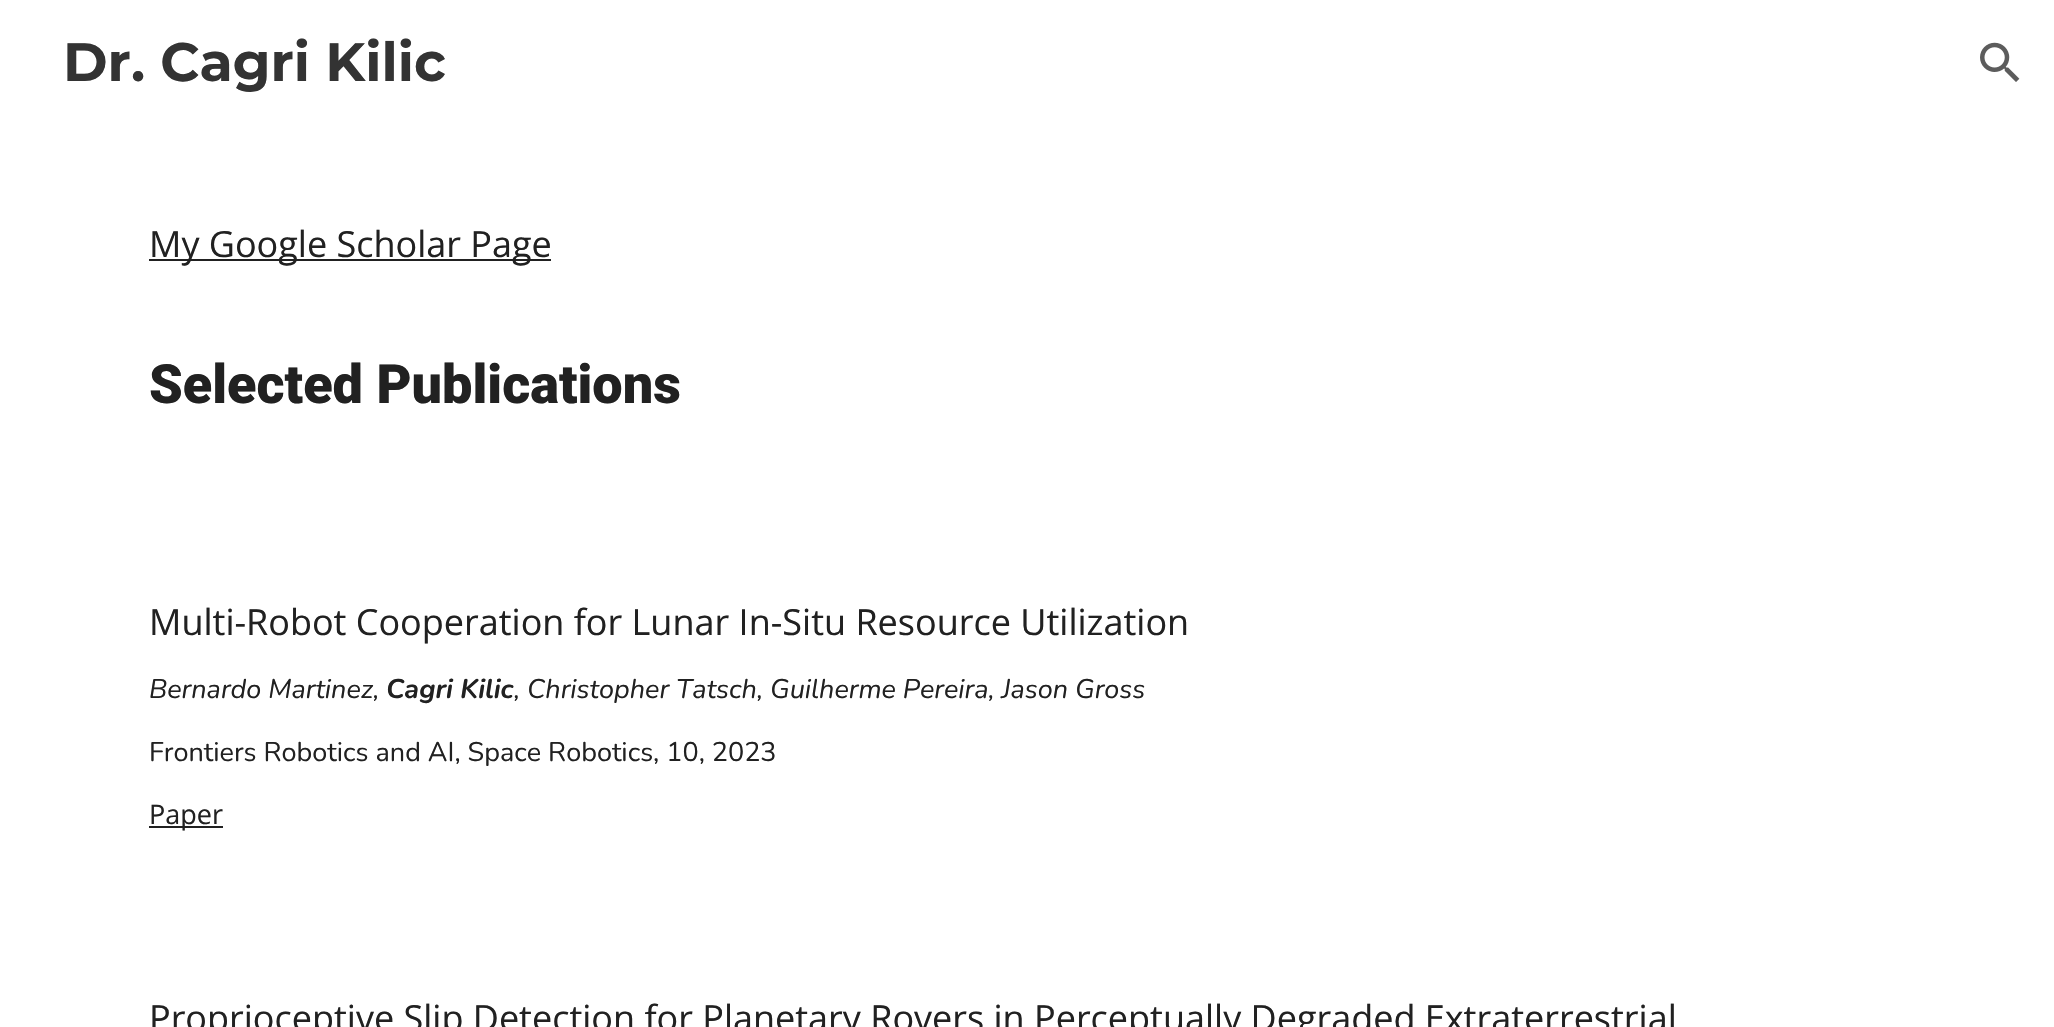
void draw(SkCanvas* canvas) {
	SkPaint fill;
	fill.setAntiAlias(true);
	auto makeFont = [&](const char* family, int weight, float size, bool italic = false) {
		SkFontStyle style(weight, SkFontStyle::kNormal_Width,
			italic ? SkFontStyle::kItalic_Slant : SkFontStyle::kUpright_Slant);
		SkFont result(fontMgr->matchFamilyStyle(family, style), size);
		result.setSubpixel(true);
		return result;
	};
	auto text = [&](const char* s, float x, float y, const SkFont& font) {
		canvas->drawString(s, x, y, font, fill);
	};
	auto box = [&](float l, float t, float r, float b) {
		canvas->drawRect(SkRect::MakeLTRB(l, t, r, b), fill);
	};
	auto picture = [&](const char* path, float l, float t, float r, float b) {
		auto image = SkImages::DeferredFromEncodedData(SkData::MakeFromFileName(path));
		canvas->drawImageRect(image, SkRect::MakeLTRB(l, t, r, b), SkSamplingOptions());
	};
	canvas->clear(0xFFFFFFFF);
	picture("image0.png", 1980, 42, 2020, 82);
	fill.setColor(0xFF212121);
	box(149, 259, 551, 261);
	box(149, 826, 223, 828);
	auto font1 = makeFont("Montserrat", 700, 54);
	fill.setColor(0xFF333333);
	text("Dr. Cagri Kilic", 63, 81, font1);
	auto font2 = makeFont("Open Sans", 400, 36);
	fill.setColor(0xFF212121);
	text("My Google Scholar Page", 149, 257, font2);
	auto font3 = makeFont("Roboto", 900, 54);
	text("Selected Publications", 149, 403, font3);
	text("Multi-Robot Cooperation for Lunar In-Situ Resource Utilization", 149, 635, font2);
	auto font4 = makeFont("Nunito", 400, 27, true);
	text("Bernardo Martinez,", 149, 698, font4);
	auto font5 = makeFont("Nunito", 700, 27, true);
	text("Cagri Kilic", 386, 698, font5);
	text(", Christopher Tatsch, Guilherme Pereira, Jason Gross", 514, 698, font4);
	auto font6 = makeFont("Nunito", 400, 27);
	text("Frontiers Robotics and AI, Space Robotics, 10, 2023", 149, 761, font6);
	auto font7 = makeFont("Open Sans", 400, 27);
	text("Paper", 149, 824, font7);
	text("Proprioceptive Slip Detection for Planetary Rovers in Perceptually Degraded Extraterrestrial", 149, 1031, font2);
}
